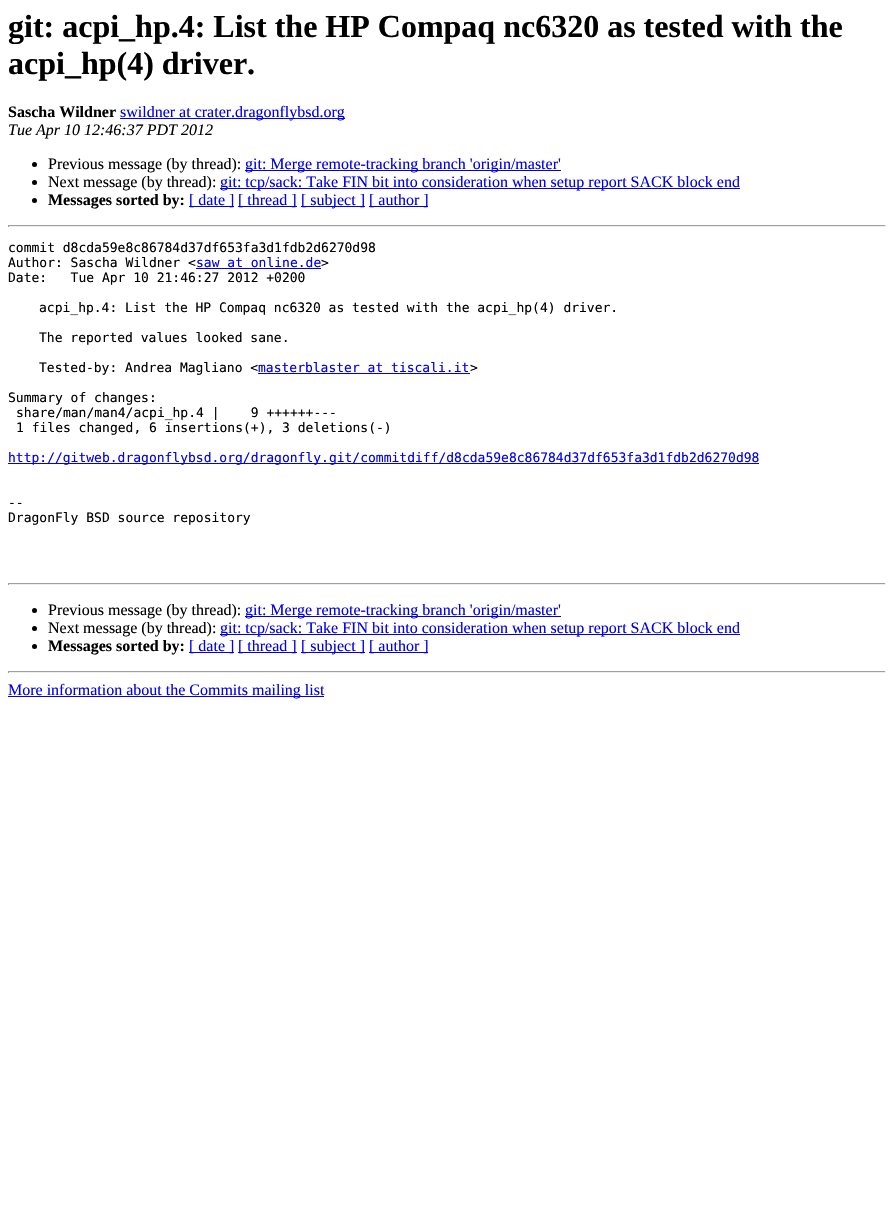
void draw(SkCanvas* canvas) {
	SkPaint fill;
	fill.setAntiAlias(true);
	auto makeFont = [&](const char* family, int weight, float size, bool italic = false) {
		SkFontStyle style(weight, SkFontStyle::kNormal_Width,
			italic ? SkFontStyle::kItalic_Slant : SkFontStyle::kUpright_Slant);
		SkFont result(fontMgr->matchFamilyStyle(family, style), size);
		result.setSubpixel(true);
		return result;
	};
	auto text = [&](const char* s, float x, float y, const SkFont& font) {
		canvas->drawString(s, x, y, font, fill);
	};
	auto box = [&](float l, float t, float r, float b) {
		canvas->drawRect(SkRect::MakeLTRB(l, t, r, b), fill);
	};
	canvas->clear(0xFFFFFFFF);
	fill.setColor(0xFF0000EE);
	box(120, 118, 345, 119);
	fill.setColor(0xFF000000);
	canvas->drawCircle(34.5f, 164.5f, 2.5f, fill);
	fill.setColor(0xFF0000EE);
	box(245, 170, 561, 171);
	fill.setColor(0xFF000000);
	canvas->drawCircle(34.5f, 182.5f, 2.5f, fill);
	fill.setColor(0xFF0000EE);
	box(220, 188, 740, 189);
	fill.setColor(0xFF000000);
	canvas->drawCircle(34.5f, 200.5f, 2.5f, fill);
	fill.setColor(0xFF0000EE);
	box(189, 206, 234, 207);
	box(238, 206, 297, 207);
	box(301, 206, 365, 207);
	box(369, 206, 428, 207);
	fill.setColor(0xFF9F9F9F);
	box(8, 225, 886, 226);
	fill.setColor(0xFFEEEEEE);
	box(885, 225, 886, 227);
	box(8, 226, 886, 227);
	fill.setColor(0xFF9F9F9F);
	box(8, 225, 9, 227);
	fill.setColor(0xFF0000EE);
	box(196, 268, 321, 269);
	box(258, 373, 470, 374);
	box(8, 463, 759, 464);
	fill.setColor(0xFF9F9F9F);
	box(8, 583, 886, 584);
	fill.setColor(0xFFEEEEEE);
	box(885, 583, 886, 585);
	box(8, 584, 886, 585);
	fill.setColor(0xFF9F9F9F);
	box(8, 583, 9, 585);
	fill.setColor(0xFF000000);
	canvas->drawCircle(34.5f, 610.5f, 2.5f, fill);
	fill.setColor(0xFF0000EE);
	box(245, 616, 561, 617);
	fill.setColor(0xFF000000);
	canvas->drawCircle(34.5f, 628.5f, 2.5f, fill);
	fill.setColor(0xFF0000EE);
	box(220, 634, 740, 635);
	fill.setColor(0xFF000000);
	canvas->drawCircle(34.5f, 646.5f, 2.5f, fill);
	fill.setColor(0xFF0000EE);
	box(189, 652, 234, 653);
	box(238, 652, 297, 653);
	box(301, 652, 365, 653);
	box(369, 652, 428, 653);
	fill.setColor(0xFF9F9F9F);
	box(8, 671, 886, 672);
	fill.setColor(0xFFEEEEEE);
	box(885, 671, 886, 673);
	box(8, 672, 886, 673);
	fill.setColor(0xFF9F9F9F);
	box(8, 671, 9, 673);
	fill.setColor(0xFF0000EE);
	box(8, 696, 324, 697);
	auto font1 = makeFont("Liberation Serif", 700, 32);
	fill.setColor(0xFF000000);
	text("git: acpi_hp.4: List the HP Compaq nc6320 as tested with the", 8, 37, font1);
	text("acpi_hp(4) driver.", 8, 74, font1);
	auto font2 = makeFont("Liberation Serif", 700, 16);
	text("Sascha Wildner", 8, 117, font2);
	auto font3 = makeFont("Liberation Serif", 400, 16);
	fill.setColor(0xFF0000EE);
	text("swildner at crater.dragonflybsd.org", 120, 117, font3);
	auto font4 = makeFont("Liberation Serif", 400, 16, true);
	fill.setColor(0xFF000000);
	text("Tue Apr 10 12:46:37 PDT 2012", 8, 135, font4);
	text("Previous message (by thread):", 48, 169, font3);
	fill.setColor(0xFF0000EE);
	text("git: Merge remote-tracking branch 'origin/master'", 245, 169, font3);
	fill.setColor(0xFF000000);
	text("Next message (by thread):", 48, 187, font3);
	fill.setColor(0xFF0000EE);
	text("git: tcp/sack: Take FIN bit into consideration when setup report SACK block end", 220, 187, font3);
	fill.setColor(0xFF000000);
	text("Messages sorted by:", 48, 205, font2);
	fill.setColor(0xFF0000EE);
	text("[ date ]", 189, 205, font3);
	text("[ thread ]", 238, 205, font3);
	text("[ subject ]", 301, 205, font3);
	text("[ author ]", 369, 205, font3);
	auto font5 = makeFont("DejaVu Sans Mono", 400, 13);
	fill.setColor(0xFF000000);
	text("commit d8cda59e8c86784d37df653fa3d1fdb2d6270d98", 8, 252, font5);
	text("Author: Sascha Wildner <", 8, 267, font5);
	fill.setColor(0xFF0000EE);
	text("saw at online.de", 196, 267, font5);
	fill.setColor(0xFF000000);
	text(">", 321, 267, font5);
	text("Date:   Tue Apr 10 21:46:27 2012 +0200", 8, 282, font5);
	text("acpi_hp.4: List the HP Compaq nc6320 as tested with the acpi_hp(4) driver.", 39, 312, font5);
	text("The reported values looked sane.", 39, 342, font5);
	text("Tested-by: Andrea Magliano <", 39, 372, font5);
	fill.setColor(0xFF0000EE);
	text("masterblaster at tiscali.it", 258, 372, font5);
	fill.setColor(0xFF000000);
	text(">", 470, 372, font5);
	text("Summary of changes:", 8, 402, font5);
	text("share/man/man4/acpi_hp.4 |    9 ++++++---", 16, 417, font5);
	text("1 files changed, 6 insertions(+), 3 deletions(-)", 16, 432, font5);
	fill.setColor(0xFF0000EE);
	text("http://gitweb.dragonflybsd.org/dragonfly.git/commitdiff/d8cda59e8c86784d37df653fa3d1fdb2d6270d98", 8, 462, font5);
	fill.setColor(0xFF000000);
	text("--", 8, 507, font5);
	text("DragonFly BSD source repository", 8, 522, font5);
	text("Previous message (by thread):", 48, 615, font3);
	fill.setColor(0xFF0000EE);
	text("git: Merge remote-tracking branch 'origin/master'", 245, 615, font3);
	fill.setColor(0xFF000000);
	text("Next message (by thread):", 48, 633, font3);
	fill.setColor(0xFF0000EE);
	text("git: tcp/sack: Take FIN bit into consideration when setup report SACK block end", 220, 633, font3);
	fill.setColor(0xFF000000);
	text("Messages sorted by:", 48, 651, font2);
	fill.setColor(0xFF0000EE);
	text("[ date ]", 189, 651, font3);
	text("[ thread ]", 238, 651, font3);
	text("[ subject ]", 301, 651, font3);
	text("[ author ]", 369, 651, font3);
	text("More information about the Commits mailing list", 8, 695, font3);
}
